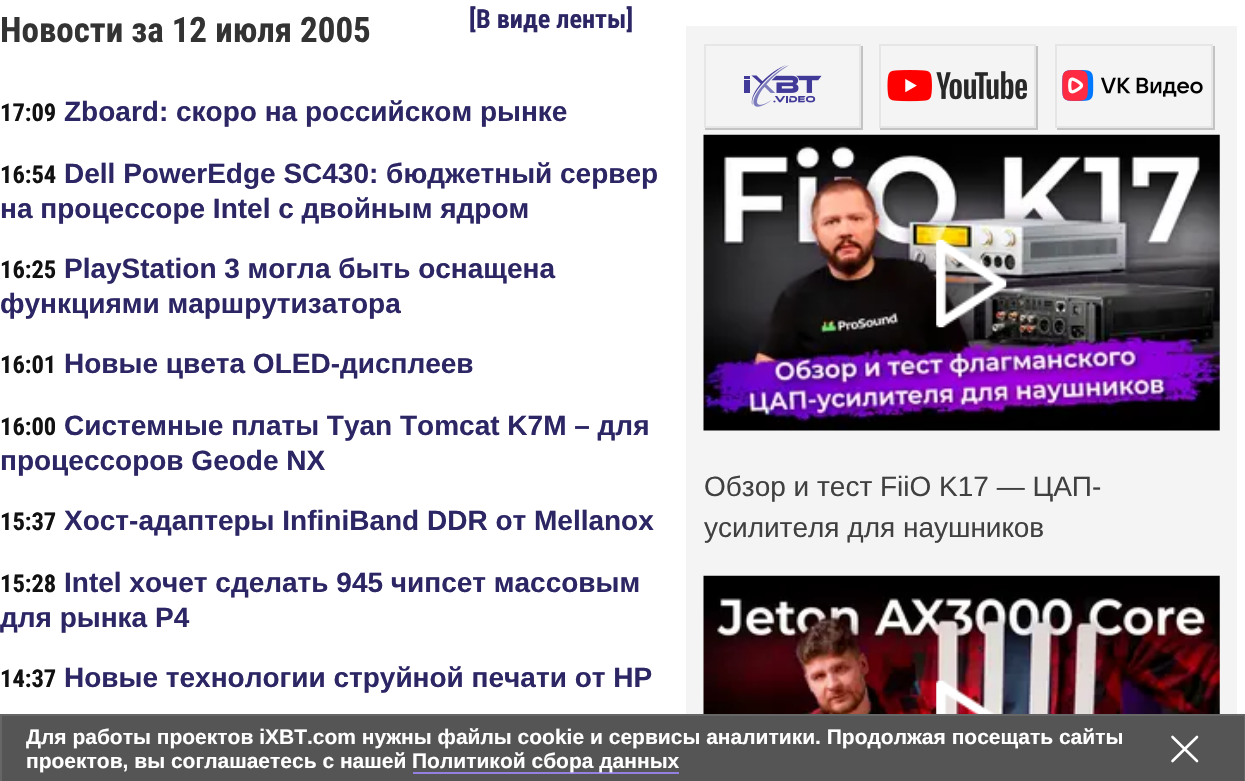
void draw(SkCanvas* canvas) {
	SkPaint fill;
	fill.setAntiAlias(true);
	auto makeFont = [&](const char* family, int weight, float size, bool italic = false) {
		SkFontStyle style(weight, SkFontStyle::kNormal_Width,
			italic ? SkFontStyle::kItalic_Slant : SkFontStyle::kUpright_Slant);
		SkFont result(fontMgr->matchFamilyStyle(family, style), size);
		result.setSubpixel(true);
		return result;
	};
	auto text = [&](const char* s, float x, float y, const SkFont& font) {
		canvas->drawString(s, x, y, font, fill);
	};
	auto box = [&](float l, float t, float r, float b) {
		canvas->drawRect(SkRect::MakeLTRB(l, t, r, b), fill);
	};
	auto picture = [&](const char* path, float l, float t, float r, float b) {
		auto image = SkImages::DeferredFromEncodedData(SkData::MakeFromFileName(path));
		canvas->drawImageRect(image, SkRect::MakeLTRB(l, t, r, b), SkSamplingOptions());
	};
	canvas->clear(0xFFFFFFFF);
	fill.setColor(0xFFF4F4F4);
	box(686, 26, 1237, 714);
	fill.setColor(0xFFC3C3C3);
	canvas->drawPath(SkPathBuilder().moveTo(705, 128).lineTo(705, 130).lineTo(863, 130).lineTo(863, 46).lineTo(861, 46).lineTo(861, 128).close().detach(), fill);
	fill.setStyle(SkPaint::kStroke_Style);
	fill.setStrokeWidth(2);
	fill.setColor(0xFFE6E6E6);
	canvas->drawRect(SkRect::MakeLTRB(705, 45, 860, 127), fill);
	picture("image0.png", 744, 65, 822, 107);
	fill.setStyle(SkPaint::kFill_Style);
	fill.setColor(0xFFC3C3C3);
	canvas->drawPath(SkPathBuilder().moveTo(880, 128).lineTo(880, 130).lineTo(1038, 130).lineTo(1038, 46).lineTo(1036, 46).lineTo(1036, 128).close().detach(), fill);
	fill.setStyle(SkPaint::kStroke_Style);
	fill.setColor(0xFFE6E6E6);
	canvas->drawRect(SkRect::MakeLTRB(880, 45, 1035, 127), fill);
	picture("image1.png", 887, 70, 1027, 102);
	fill.setStyle(SkPaint::kFill_Style);
	fill.setColor(0xFFC3C3C3);
	canvas->drawPath(SkPathBuilder().moveTo(1057, 128).lineTo(1057, 130).lineTo(1215, 130).lineTo(1215, 46).lineTo(1213, 46).lineTo(1213, 128).close().detach(), fill);
	fill.setStyle(SkPaint::kStroke_Style);
	fill.setColor(0xFFE6E6E6);
	canvas->drawRect(SkRect::MakeLTRB(1056, 45, 1212, 127), fill);
	picture("image2.png", 1062, 70, 1203, 101);
	picture("image3.png", 703, 134, 1220, 431);
	picture("image4.png", 936, 239, 1007, 328);
	picture("image5.png", 703, 575, 1220, 714);
	picture("image6.png", 936, 680, 996, 714);
	fill.setStyle(SkPaint::kFill_Style);
	fill.setColor(0xFF555555);
	canvas->drawRect(SkRect::MakeLTRB(1, 715, 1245, 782), fill);
	fill.setStyle(SkPaint::kStroke_Style);
	fill.setColor(0xFF666666);
	canvas->drawRect(SkRect::MakeLTRB(1, 715, 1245, 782), fill);
	fill.setStyle(SkPaint::kFill_Style);
	fill.setColor(0xFF9380E1);
	box(413, 772, 679, 774);
	fill.setStyle(SkPaint::kStroke_Style);
	fill.setStrokeWidth(2.6f);
	fill.setStrokeCap(SkPaint::kRound_Cap);
	fill.setStrokeJoin(SkPaint::kRound_Join);
	fill.setColor(0xFFFFFFFF);
	canvas->drawPath(SkPathBuilder().moveTo(1172.5f, 737).lineTo(1197, 761).moveTo(1197, 737).lineTo(1172.5f, 761).detach(), fill);
	auto font1 = makeFont("Roboto Condensed", 700, 35);
	fill.setStyle(SkPaint::kFill_Style);
	fill.setColor(0xFF333333);
	text("Новости за 12 июля 2005", 0, 42, font1);
	auto font2 = makeFont("Roboto Condensed", 700, 26.25f);
	fill.setColor(0xFF2C2665);
	text("[В виде ленты]", 469, 28, font2);
	auto font3 = makeFont("Roboto Condensed", 700, 24.5f);
	fill.setColor(0xFF111111);
	text("17:09", 0, 121, font3);
	auto font4 = makeFont("Liberation Sans", 700, 28);
	fill.setColor(0xFF2C2665);
	text("Zboard: скоро на российском рынке", 64, 121, font4);
	fill.setColor(0xFF111111);
	text("16:54", 0, 183, font3);
	fill.setColor(0xFF2C2665);
	text("Dell PowerEdge SC430: бюджетный сервер", 64, 183, font4);
	text("на процессоре Intel с двойным ядром", 0, 218, font4);
	fill.setColor(0xFF111111);
	text("16:25", 0, 278, font3);
	fill.setColor(0xFF2C2665);
	text("PlayStation 3 могла быть оснащена", 64, 278, font4);
	text("функциями маршрутизатора", 0, 313, font4);
	fill.setColor(0xFF111111);
	text("16:01", 0, 373, font3);
	fill.setColor(0xFF2C2665);
	text("Новые цвета OLED-дисплеев", 64, 373, font4);
	fill.setColor(0xFF111111);
	text("16:00", 0, 435, font3);
	fill.setColor(0xFF2C2665);
	text("Системные платы Tyan Tomcat K7M – для", 64, 435, font4);
	text("процессоров Geode NX", 0, 470, font4);
	fill.setColor(0xFF111111);
	text("15:37", 0, 530, font3);
	fill.setColor(0xFF2C2665);
	text("Хост-адаптеры InfiniBand DDR от Mellanox", 64, 530, font4);
	fill.setColor(0xFF111111);
	text("15:28", 0, 592, font3);
	fill.setColor(0xFF2C2665);
	text("Intel хочет сделать 945 чипсет массовым", 64, 592, font4);
	text("для рынка P4", 0, 627, font4);
	fill.setColor(0xFF111111);
	text("14:37", 0, 687, font3);
	fill.setColor(0xFF2C2665);
	text("Новые технологии струйной печати от НР", 64, 687, font4);
	auto font5 = makeFont("Liberation Sans", 400, 28);
	fill.setColor(0xFF404040);
	text("Обзор и тест FiiO K17 — ЦАП-", 704, 496, font5);
	text("усилителя для наушников", 704, 537, font5);
	auto font6 = makeFont("Liberation Sans", 700, 21);
	fill.setColor(0xFFFFFFFF);
	text("Для работы проектов iXBT.com нужны файлы cookie и сервисы аналитики. Продолжая посещать сайты", 26, 744, font6);
	text("проектов, вы соглашаетесь с нашей", 26, 768, font6);
	text("Политикой сбора данных", 412, 768, font6);
}
